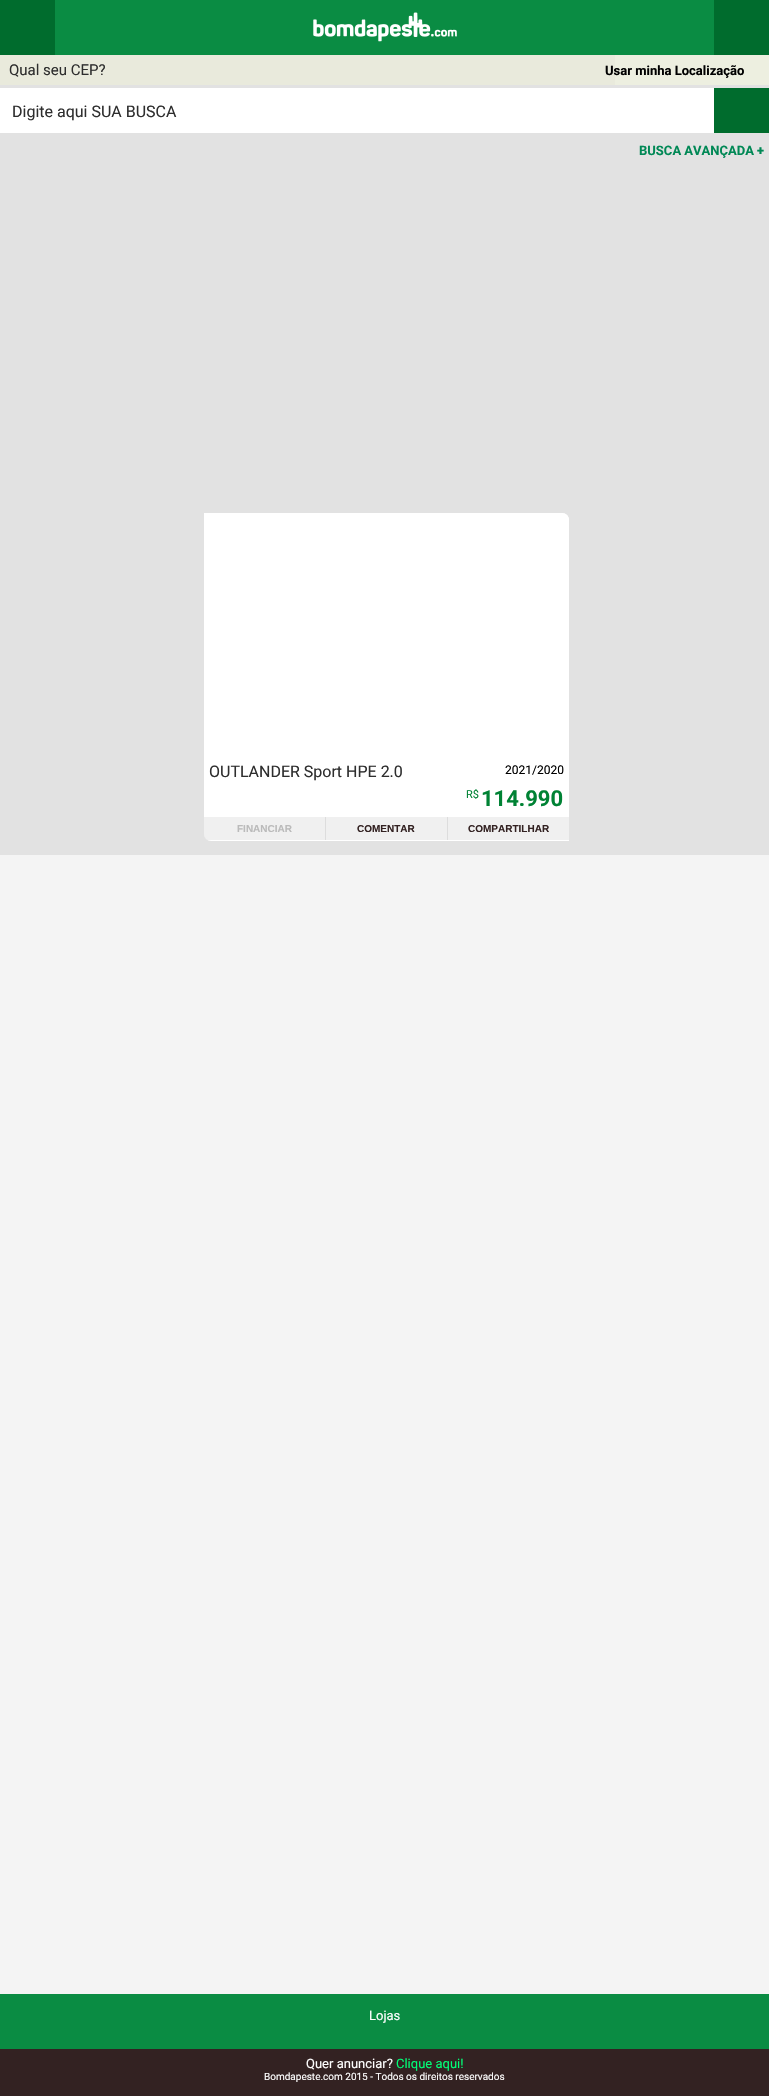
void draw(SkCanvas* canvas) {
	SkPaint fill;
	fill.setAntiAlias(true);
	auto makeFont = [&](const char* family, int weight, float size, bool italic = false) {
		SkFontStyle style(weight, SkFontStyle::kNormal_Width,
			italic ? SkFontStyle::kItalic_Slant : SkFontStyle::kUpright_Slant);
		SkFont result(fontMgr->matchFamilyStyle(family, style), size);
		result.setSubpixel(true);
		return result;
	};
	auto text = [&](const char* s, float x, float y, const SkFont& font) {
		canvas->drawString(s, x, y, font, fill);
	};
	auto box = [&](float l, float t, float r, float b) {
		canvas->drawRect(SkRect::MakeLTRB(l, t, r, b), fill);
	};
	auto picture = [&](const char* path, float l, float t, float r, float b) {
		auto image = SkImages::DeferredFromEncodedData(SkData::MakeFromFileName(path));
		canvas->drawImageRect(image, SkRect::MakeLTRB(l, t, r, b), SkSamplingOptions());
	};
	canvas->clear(0xFFF4F4F4);
	fill.setColor(0xFFE2E2E2);
	box(0, 85, 769, 855);
	fill.setColor(0xFF0A8C43);
	box(55, 0, 714, 55);
	fill.setColor(0xFF006C2D);
	box(0, 0, 55, 55);
	picture("image0.png", 313, 12, 457, 42);
	box(714, 0, 769, 55);
	fill.setColor(0xFFEDEFE0);
	box(615, 55, 769, 85);
	fill.setColor(0xFFE9EADC);
	box(0, 55, 615, 85);
	fill.setColor(0xFFFFFFFF);
	box(0, 88, 714, 133);
	fill.setColor(0xFF006C2D);
	box(714, 88, 769, 133);
	fill.setColor(0xFFFFFFFF);
	canvas->drawPath(SkPathBuilder().moveTo(204, 513).lineTo(562, 513).cubicTo(566, 513, 569, 516, 569, 520).lineTo(569, 841).lineTo(211, 841).cubicTo(207, 841, 204, 838, 204, 834).close().detach(), fill);
	fill.setColor(0xE6FFFFFF);
	canvas->drawPath(SkPathBuilder().moveTo(204, 513).lineTo(562, 513).cubicTo(566, 513, 569, 516, 569, 520).lineTo(569, 787).lineTo(204, 787).close().detach(), fill);
	canvas->save();
	canvas->clipPath(SkPathBuilder().moveTo(204, 513).lineTo(562, 513).cubicTo(566, 513, 569, 516, 569, 520).lineTo(569, 841).lineTo(211, 841).cubicTo(207, 841, 204, 838, 204, 834).close().detach(), true);
	fill.setColor(0x33B4B4B4);
	box(204, 817, 325, 840);
	canvas->restore();
	fill.setColor(0xFFDDDDDD);
	box(325, 817, 326, 840);
	fill.setColor(0xFFF0F0F0);
	box(326, 817, 447, 840);
	fill.setColor(0xFFDDDDDD);
	box(447, 817, 448, 840);
	fill.setColor(0xFFF0F0F0);
	box(448, 817, 569, 840);
	fill.setColor(0xFF0A8C43);
	box(0, 1994, 769, 2049);
	fill.setColor(0xFF332222);
	box(0, 2049, 769, 2096);
	auto font1 = makeFont("Roboto", 400, 15);
	fill.setColor(0xFF2E2E2E);
	text("Qual seu CEP?", 9, 75, font1);
	auto font2 = makeFont("Roboto", 700, 13);
	fill.setColor(0xFF000000);
	text("Usar minha Localização", 605, 75, font2);
	auto font3 = makeFont("Roboto", 400, 16);
	fill.setColor(0xFF2E2E2E);
	text("Digite aqui SUA BUSCA", 12, 117, font3);
	fill.setColor(0xFF008855);
	text("BUSCA AVANÇADA", 639, 155, font2);
	auto font4 = makeFont("Roboto", 900, 13);
	text("+", 757, 155, font4);
	fill.setColor(0xFF2E2E2E);
	text("OUTLANDER Sport HPE 2.0", 209, 777, font3);
	auto font5 = makeFont("Roboto", 400, 12);
	fill.setColor(0xFF000000);
	text("2021/2020", 505, 774, font5);
	auto font6 = makeFont("Roboto", 400, 11);
	fill.setColor(0xFF008234);
	text("R$", 466, 798, font6);
	auto font7 = makeFont("Roboto", 700, 22);
	text("114.990", 481, 806, font7);
	auto font8 = makeFont("Liberation Sans", 700, 10);
	fill.setColor(0xFFBBBBBB);
	text("FINANCIAR", 237, 832, font8);
	fill.setColor(0xFF332222);
	text("COMENTAR", 357, 832, font8);
	text("COMPARTILHAR", 468, 832, font8);
	auto font9 = makeFont("Roboto", 400, 13);
	fill.setColor(0xFFFFFFFF);
	text("Lojas", 369, 2020, font9);
	text("Quer anunciar?", 306, 2068, font9);
	fill.setColor(0xFF00FF77);
	text("Clique aqui!", 396, 2068, font9);
	auto font10 = makeFont("Roboto", 400, 10);
	fill.setColor(0xFFFFFFFF);
	text("Bomdapeste.com 2015 - Todos os direitos reservados", 264, 2080, font10);
}
